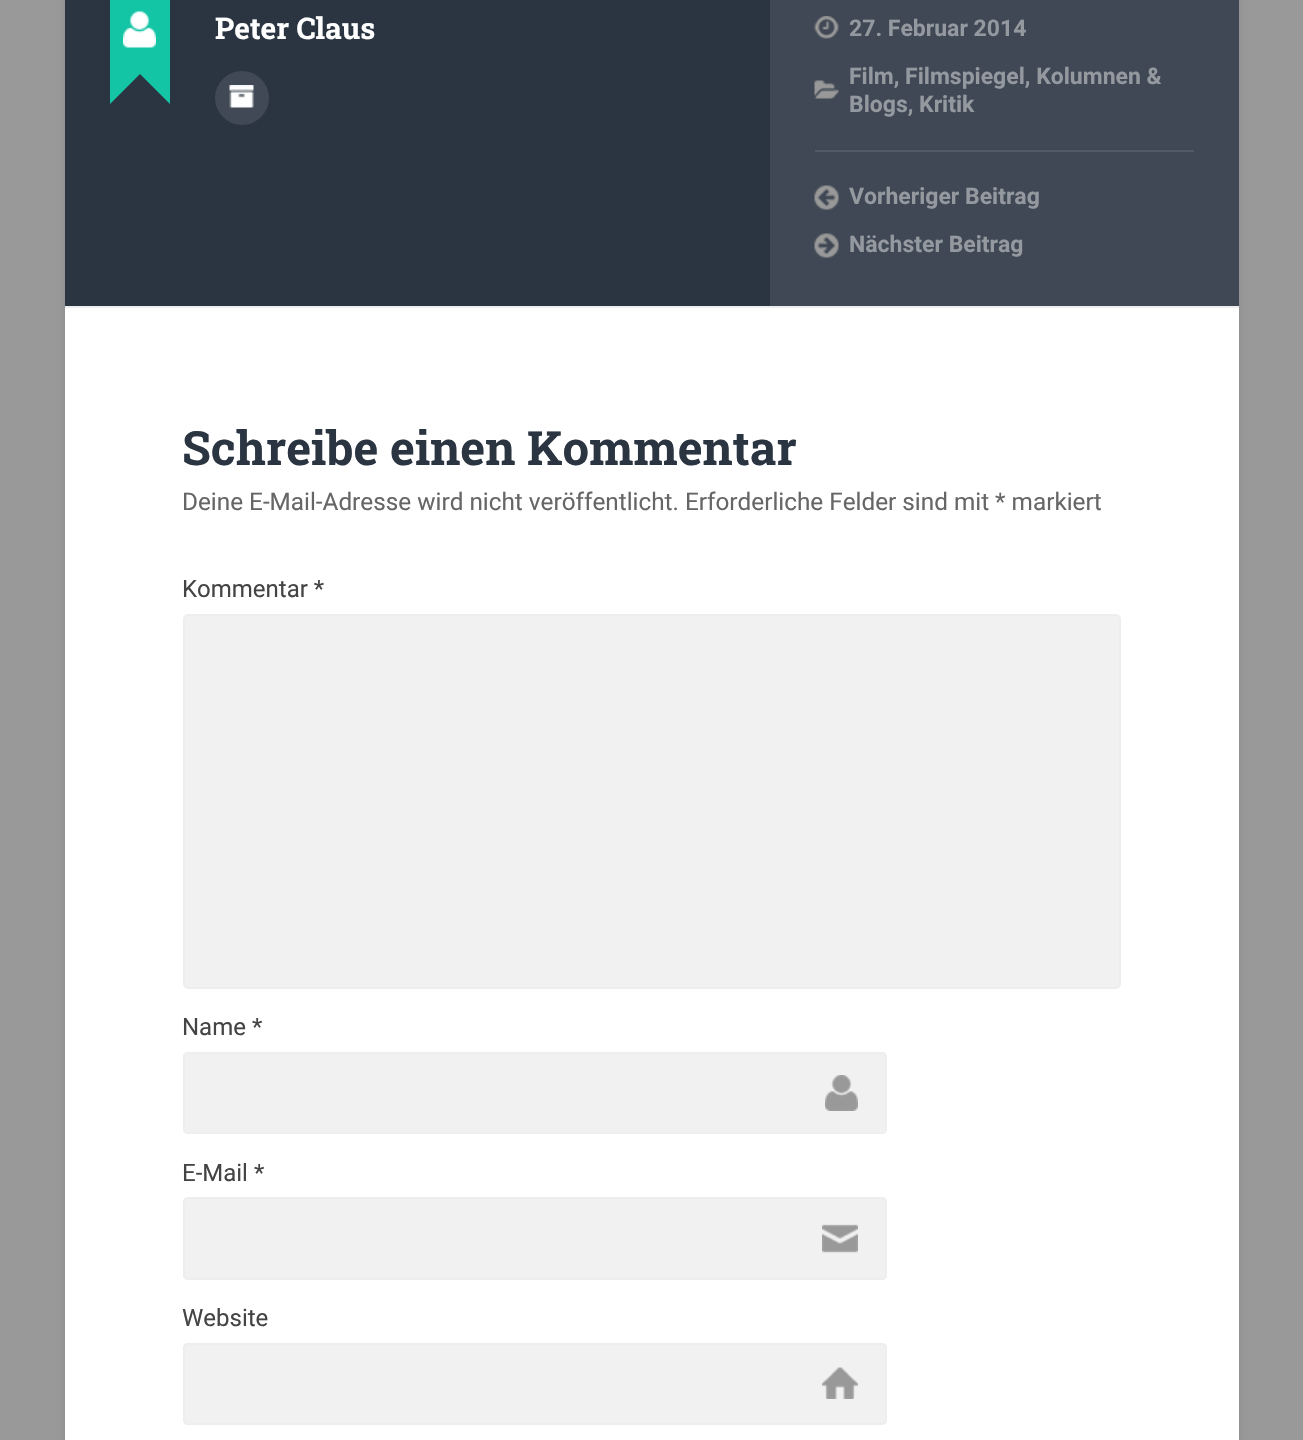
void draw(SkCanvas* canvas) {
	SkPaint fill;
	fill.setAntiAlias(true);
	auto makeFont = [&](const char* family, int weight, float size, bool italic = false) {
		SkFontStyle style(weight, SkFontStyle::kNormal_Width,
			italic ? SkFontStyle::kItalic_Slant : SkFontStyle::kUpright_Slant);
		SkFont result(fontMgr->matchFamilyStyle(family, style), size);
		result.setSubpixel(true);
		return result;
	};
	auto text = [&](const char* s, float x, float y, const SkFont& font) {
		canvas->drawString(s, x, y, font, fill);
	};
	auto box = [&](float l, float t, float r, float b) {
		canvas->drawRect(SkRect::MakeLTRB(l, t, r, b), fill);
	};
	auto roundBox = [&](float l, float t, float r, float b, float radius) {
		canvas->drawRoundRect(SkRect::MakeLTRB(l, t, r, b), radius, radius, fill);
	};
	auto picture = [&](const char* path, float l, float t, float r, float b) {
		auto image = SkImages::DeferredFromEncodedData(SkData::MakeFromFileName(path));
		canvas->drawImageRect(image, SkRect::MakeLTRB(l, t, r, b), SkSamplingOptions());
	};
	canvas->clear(0xFF999999);
	fill.setColor(0x1A000000);
	fill.setMaskFilter(SkMaskFilter::MakeBlur(kNormal_SkBlurStyle, 3));
	canvas->drawRoundRect(SkRect::MakeLTRB(65, -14, 1239, 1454), 5, 5, fill);
	fill.setMaskFilter(nullptr);
	fill.setColor(0xFFFFFFFF);
	box(65, 308, 1239, 1440);
	fill.setColor(0xFF2B3542);
	box(65, 0, 770, 306);
	fill.setColor(0xFF13C4A5);
	canvas->drawPath(SkPathBuilder().moveTo(170, 44).lineTo(170, 104).lineTo(140, 74).close().moveTo(110, 104).lineTo(110, 44).lineTo(140, 74).close().detach(), fill);
	box(110, 0, 170, 74);
	picture("image0.png", 123, 11, 156, 48);
	fill.setColor(0xFF404955);
	canvas->drawCircle(242, 98, 27, fill);
	picture("image1.png", 229, 85, 254, 108);
	fill.setColor(0xFF3F4854);
	box(770, 0, 1239, 306);
	picture("image2.png", 814, 16, 839, 39);
	picture("image3.png", 814, 80, 839, 99);
	fill.setColor(0xFF525A65);
	box(815, 150, 1194, 152);
	picture("image4.png", 814, 185, 839, 210);
	picture("image5.png", 814, 233, 839, 258);
	fill.setColor(0xFFEEEEEE);
	box(65, 306, 1239, 308);
	fill.setColor(0xFFF1F1F1);
	canvas->drawRoundRect(SkRect::MakeLTRB(184, 615, 1120, 988), 4, 4, fill);
	fill.setStyle(SkPaint::kStroke_Style);
	fill.setStrokeWidth(2);
	fill.setColor(0xFFEEEEEE);
	canvas->drawRoundRect(SkRect::MakeLTRB(184, 615, 1120, 988), 4, 4, fill);
	fill.setStyle(SkPaint::kFill_Style);
	fill.setColor(0xFFF1F1F1);
	roundBox(183, 1052, 887, 1134, 5);
	picture("image6.png", 825, 1075, 858, 1111);
	fill.setStyle(SkPaint::kStroke_Style);
	fill.setColor(0xFFEEEEEE);
	canvas->drawRoundRect(SkRect::MakeLTRB(184, 1053, 886, 1133), 4, 4, fill);
	fill.setStyle(SkPaint::kFill_Style);
	fill.setColor(0xFFF1F1F1);
	roundBox(183, 1197, 887, 1280, 5);
	picture("image7.png", 822, 1224, 858, 1253);
	fill.setStyle(SkPaint::kStroke_Style);
	fill.setColor(0xFFEEEEEE);
	canvas->drawRoundRect(SkRect::MakeLTRB(184, 1198, 886, 1279), 4, 4, fill);
	fill.setStyle(SkPaint::kFill_Style);
	fill.setColor(0xFFF1F1F1);
	roundBox(183, 1343, 887, 1425, 5);
	picture("image8.png", 822, 1367, 858, 1399);
	fill.setStyle(SkPaint::kStroke_Style);
	fill.setColor(0xFFEEEEEE);
	canvas->drawRoundRect(SkRect::MakeLTRB(184, 1344, 886, 1424), 4, 4, fill);
	auto font1 = makeFont("Roboto Slab", 700, 29.75f);
	fill.setStyle(SkPaint::kFill_Style);
	fill.setColor(0xFFFFFFFF);
	text("Peter Claus", 215, 39, font1);
	auto font2 = makeFont("Roboto", 700, 23);
	fill.setColor(0xFF9499A0);
	text("27. Februar 2014", 849, 36, font2);
	text("Film, Filmspiegel, Kolumnen &", 849, 84, font2);
	text("Blogs, Kritik", 849, 112, font2);
	text("Vorheriger Beitrag", 849, 204, font2);
	text("Nächster Beitrag", 849, 252, font2);
	auto font3 = makeFont("Roboto Slab", 700, 47.25f);
	fill.setColor(0xFF2B3542);
	text("Schreibe einen Kommentar", 182, 465, font3);
	auto font4 = makeFont("Roboto", 400, 24.3f);
	fill.setColor(0xFF666666);
	text("Deine E-Mail-Adresse wird nicht veröffentlicht.", 182, 510, font4);
	text("Erforderliche Felder sind mit * markiert", 685, 510, font4);
	auto font5 = makeFont("Roboto", 400, 24);
	fill.setColor(0xFF444444);
	text("Kommentar *", 182, 597, font5);
	text("Name *", 182, 1035, font5);
	text("E-Mail *", 182, 1181, font5);
	text("Website", 182, 1326, font5);
}
